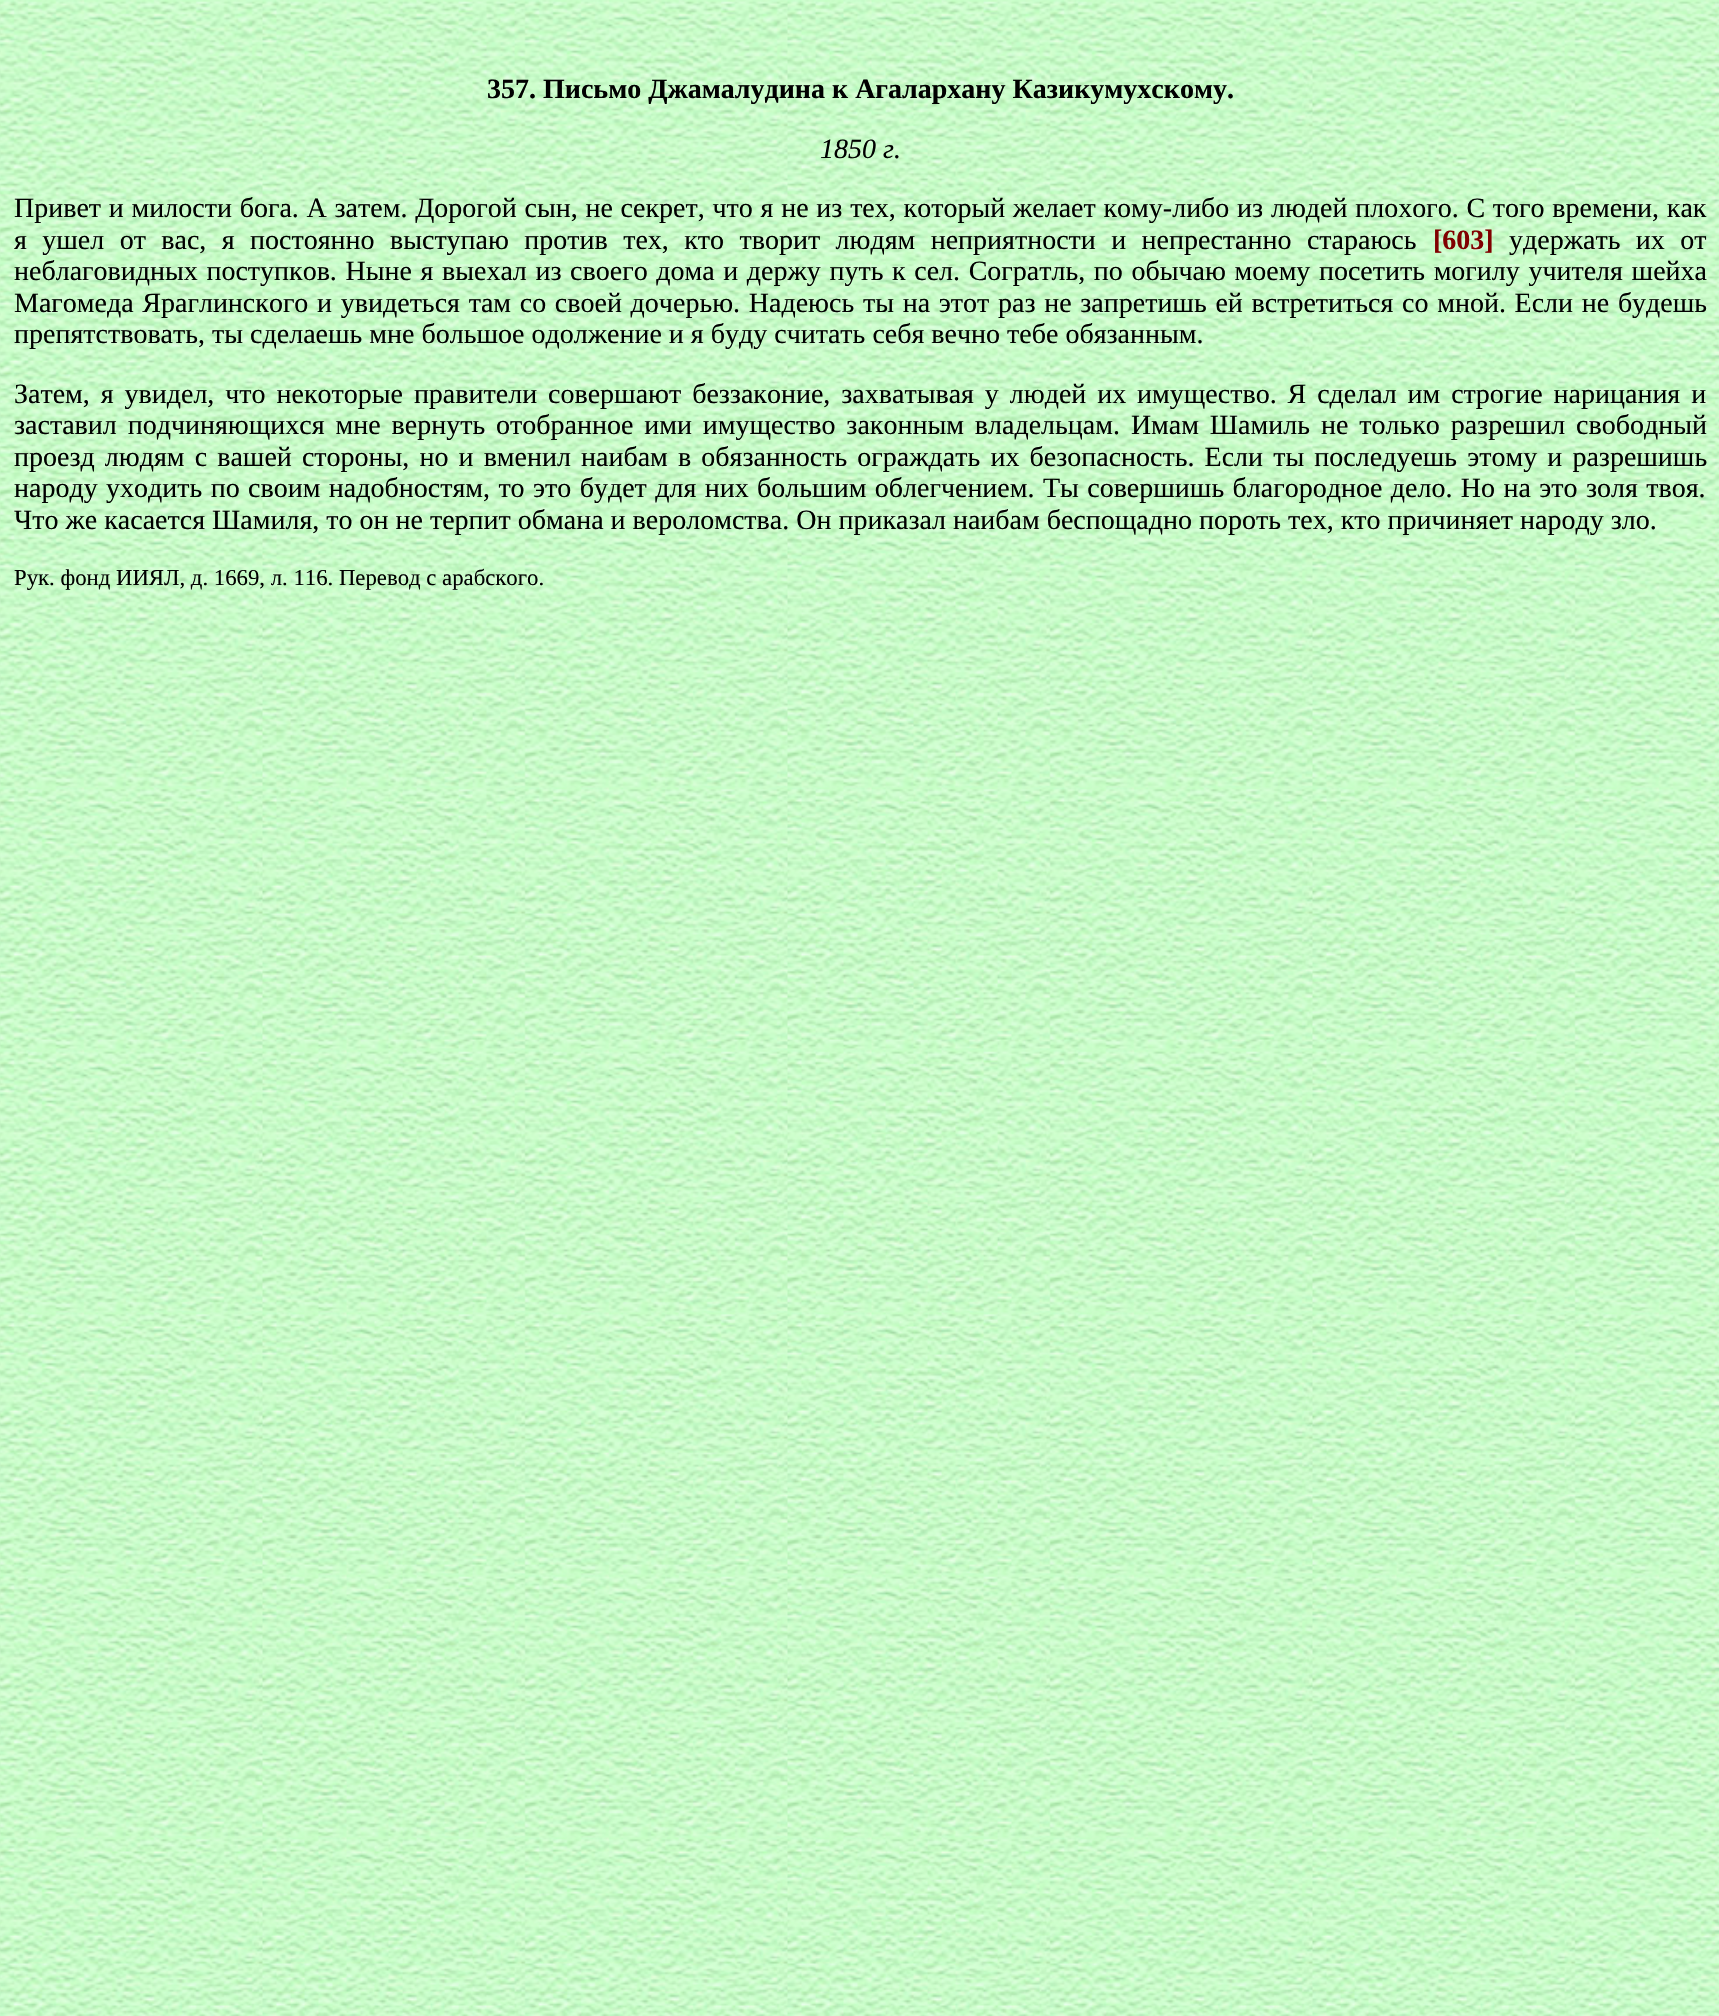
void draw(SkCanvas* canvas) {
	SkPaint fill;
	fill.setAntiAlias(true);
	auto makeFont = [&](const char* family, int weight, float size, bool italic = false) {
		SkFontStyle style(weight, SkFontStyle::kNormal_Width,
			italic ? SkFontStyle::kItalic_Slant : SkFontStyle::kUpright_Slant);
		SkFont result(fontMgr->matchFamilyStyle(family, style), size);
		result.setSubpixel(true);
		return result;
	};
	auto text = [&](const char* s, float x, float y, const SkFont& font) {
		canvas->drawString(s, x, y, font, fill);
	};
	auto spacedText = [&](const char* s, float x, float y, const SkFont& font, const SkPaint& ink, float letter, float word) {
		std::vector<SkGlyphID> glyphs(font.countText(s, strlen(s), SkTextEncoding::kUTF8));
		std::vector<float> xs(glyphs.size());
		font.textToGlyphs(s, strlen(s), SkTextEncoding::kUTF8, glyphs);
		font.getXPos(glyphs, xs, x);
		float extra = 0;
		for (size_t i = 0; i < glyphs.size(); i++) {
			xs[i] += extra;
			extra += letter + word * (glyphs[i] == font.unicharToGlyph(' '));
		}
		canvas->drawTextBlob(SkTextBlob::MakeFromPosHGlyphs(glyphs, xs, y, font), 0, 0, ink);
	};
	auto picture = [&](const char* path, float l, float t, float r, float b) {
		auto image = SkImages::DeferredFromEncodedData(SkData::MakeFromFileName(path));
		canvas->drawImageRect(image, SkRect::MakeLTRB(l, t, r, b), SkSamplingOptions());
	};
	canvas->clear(0xFFFFFFFF);
	picture("image0.png", 0, 0, 1719, 2016);
	auto font1 = makeFont("Liberation Serif", 700, 28);
	fill.setColor(0xFF000000);
	text("357. Письмо Джамалудина к Агалархану Казикумухскому.", 487, 98, font1);
	auto font2 = makeFont("Liberation Serif", 400, 28, true);
	text("1850 г.", 820, 158, font2);
	auto font3 = makeFont("Liberation Serif", 400, 28);
	spacedText("Привет и милости бога. А затем. Дорогой сын, не секрет, что я не из тех, который желает кому-либо из людей плохого. С того времени, как", 14, 217, font3, fill, 0, 0.75f);
	spacedText("я ушел от вас, я постоянно выступаю против тех, кто творит людям неприятности и непрестанно стараюсь", 14, 249, font3, fill, 0, 8.4f);
	fill.setColor(0xFF800000);
	text("[603]", 1433, 249, font1);
	fill.setColor(0xFF000000);
	spacedText("удержать их от", 1509, 249, font3, fill, 0, 8.4f);
	spacedText("неблаговидных поступков. Ныне я выехал из своего дома и держу путь к сел. Согратль, по обычаю моему посетить могилу учителя шейха", 14, 280, font3, fill, 0, 1.6f);
	spacedText("Магомеда Яраглинского и увидеться там со своей дочерью. Надеюсь ты на этот раз не запретишь ей встретиться со мной. Если не будешь", 14, 312, font3, fill, 0, 1.7f);
	text("препятствовать, ты сделаешь мне большое одолжение и я буду считать себя вечно тебе обязанным.", 14, 343, font3);
	spacedText("Затем, я увидел, что некоторые правители совершают беззаконие, захватывая у людей их имущество. Я сделал им строгие нарицания и", 14, 403, font3, fill, 0, 3.9f);
	spacedText("заставил подчиняющихся мне вернуть отобранное ими имущество законным владельцам. Имам Шамиль не только разрешил свободный", 14, 434, font3, fill, 0, 3.9f);
	spacedText("проезд людям с вашей стороны, но и вменил наибам в обязанность ограждать их безопасность. Если ты последуешь этому и разрешишь", 14, 466, font3, fill, 0, 3.1f);
	spacedText("народу уходить по своим надобностям, то это будет для них большим облегчением. Ты совершишь благородное дело. Но на это золя твоя.", 14, 497, font3, fill, 0, 1.4f);
	text("Что же касается Шамиля, то он не терпит обмана и вероломства. Он приказал наибам беспощадно пороть тех, кто причиняет народу зло.", 14, 529, font3);
	auto font4 = makeFont("Liberation Serif", 400, 22.75f);
	text("Рук. фонд ИИЯЛ, д. 1669, л. 116. Перевод с арабского.", 14, 585, font4);
}
